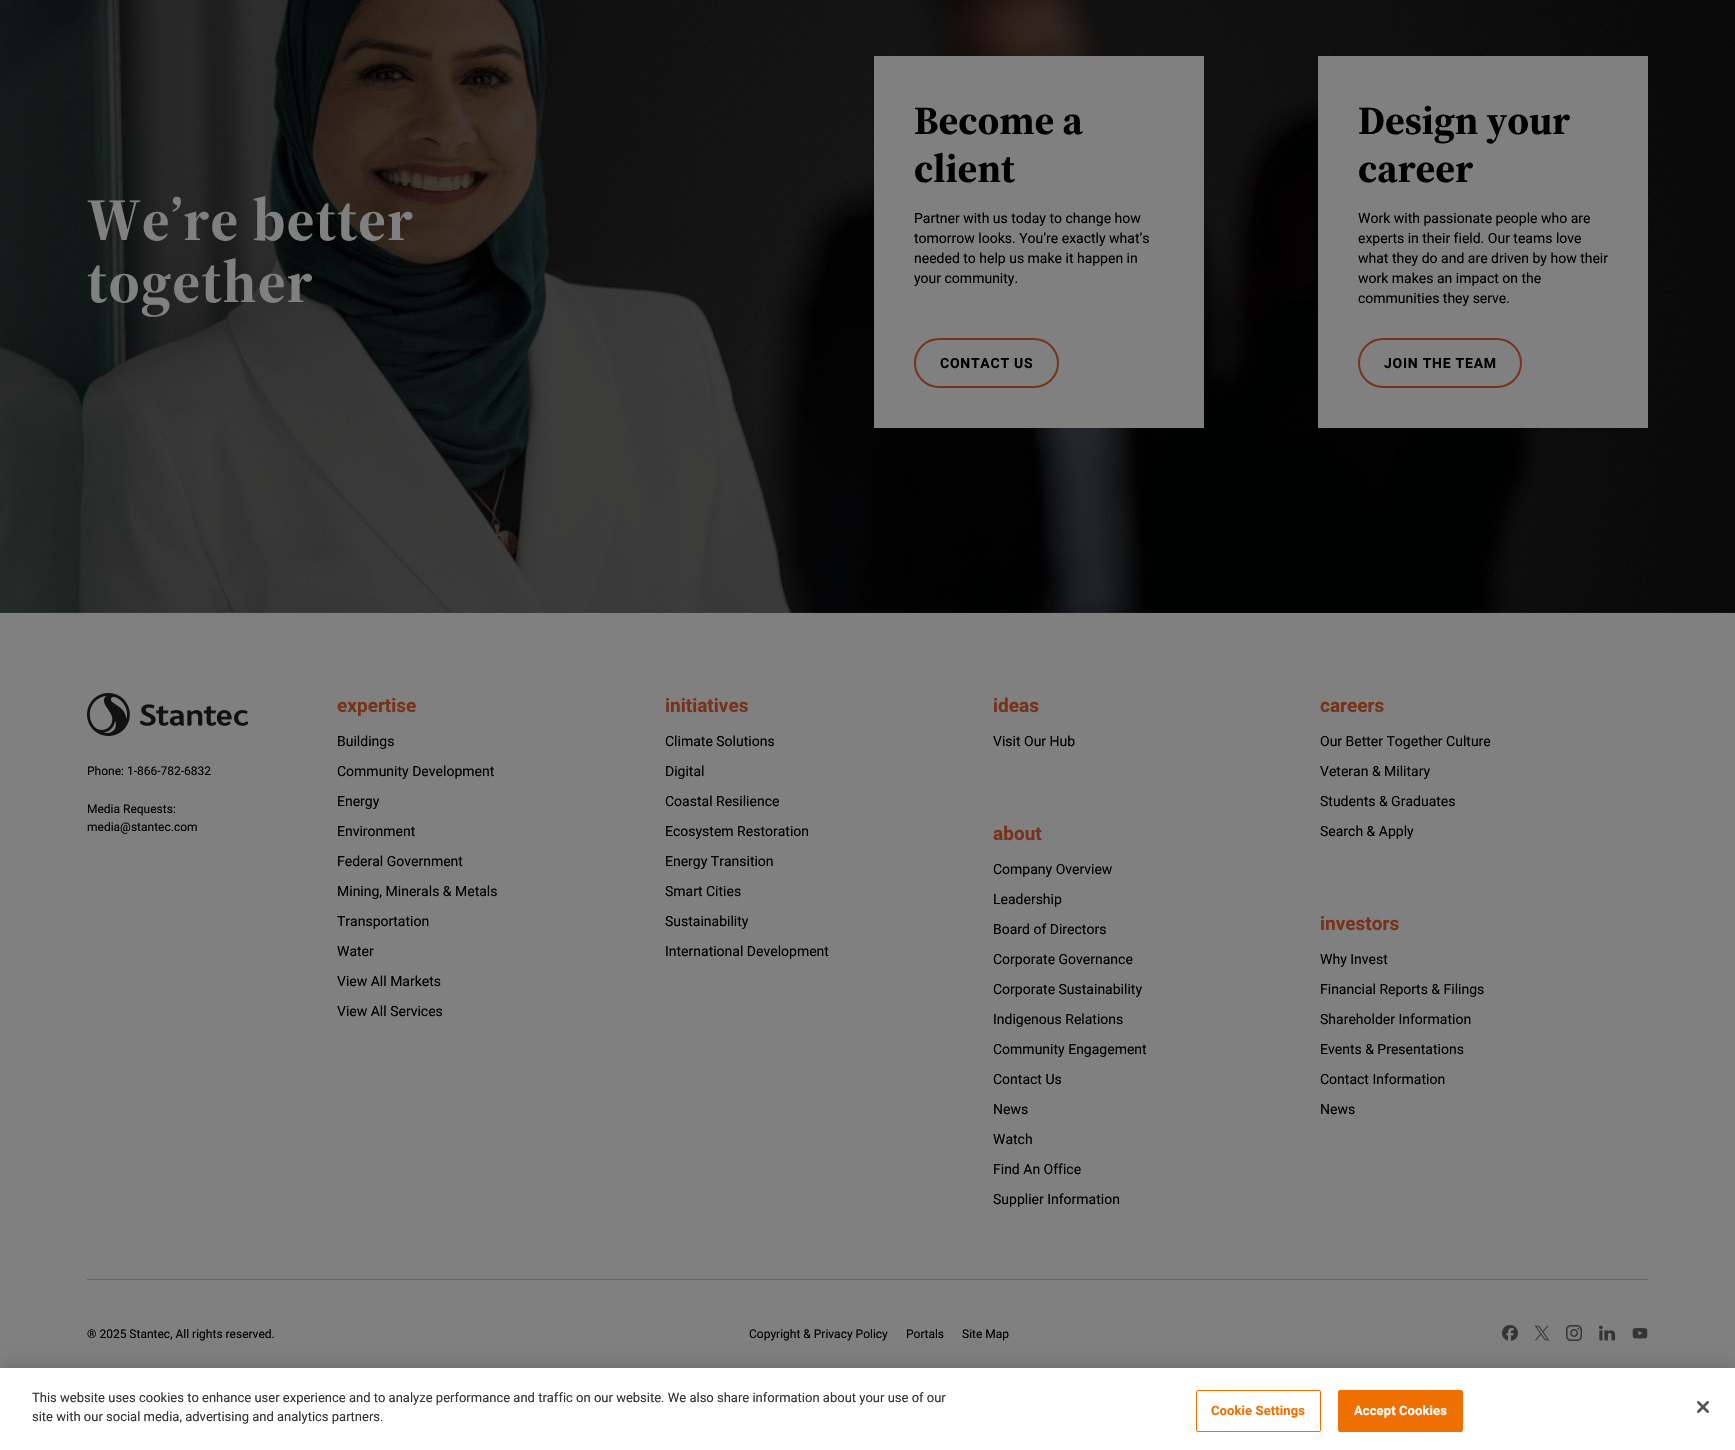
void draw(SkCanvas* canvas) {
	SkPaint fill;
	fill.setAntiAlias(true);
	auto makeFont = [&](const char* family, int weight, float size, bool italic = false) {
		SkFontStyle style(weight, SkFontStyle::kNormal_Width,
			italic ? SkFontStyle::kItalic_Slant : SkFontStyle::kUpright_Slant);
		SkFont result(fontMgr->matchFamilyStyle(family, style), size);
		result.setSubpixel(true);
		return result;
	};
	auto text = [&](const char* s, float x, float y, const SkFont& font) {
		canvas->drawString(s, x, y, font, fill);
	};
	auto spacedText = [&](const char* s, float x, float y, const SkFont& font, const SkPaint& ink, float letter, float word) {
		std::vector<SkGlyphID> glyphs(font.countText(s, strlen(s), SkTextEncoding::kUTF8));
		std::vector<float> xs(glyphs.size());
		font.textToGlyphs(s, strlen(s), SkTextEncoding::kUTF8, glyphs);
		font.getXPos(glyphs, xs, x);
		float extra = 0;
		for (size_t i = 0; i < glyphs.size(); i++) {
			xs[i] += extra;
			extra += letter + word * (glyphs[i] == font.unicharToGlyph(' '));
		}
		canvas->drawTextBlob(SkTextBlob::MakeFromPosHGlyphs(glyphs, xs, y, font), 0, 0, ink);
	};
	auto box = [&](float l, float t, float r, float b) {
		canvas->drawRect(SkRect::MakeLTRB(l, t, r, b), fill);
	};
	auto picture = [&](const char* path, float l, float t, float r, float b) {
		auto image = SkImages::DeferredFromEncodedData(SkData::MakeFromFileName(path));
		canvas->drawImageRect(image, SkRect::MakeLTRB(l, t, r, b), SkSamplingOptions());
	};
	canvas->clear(0xFF808080);
	picture("image0.png", 0, 0, 1735, 613);
	fill.setColor(0xFF808080);
	box(874, 56, 1204, 428);
	fill.setStyle(SkPaint::kStroke_Style);
	fill.setStrokeWidth(2);
	fill.setColor(0xFF773319);
	canvas->drawRoundRect(SkRect::MakeLTRB(915, 339, 1058, 387), 24, 24, fill);
	fill.setStyle(SkPaint::kFill_Style);
	fill.setColor(0xFF808080);
	box(1318, 56, 1648, 428);
	fill.setStyle(SkPaint::kStroke_Style);
	fill.setColor(0xFF773319);
	canvas->drawRoundRect(SkRect::MakeLTRB(1359, 339, 1521, 387), 24, 24, fill);
	picture("image1.png", 87, 693, 248, 736);
	fill.setStyle(SkPaint::kFill_Style);
	fill.setColor(0xFF65625F);
	box(87, 1279, 1648, 1280);
	picture("image2.png", 1502, 1325, 1518, 1341);
	picture("image3.png", 1534, 1325, 1550, 1341);
	picture("image4.png", 1566, 1325, 1582, 1341);
	picture("image5.png", 1599, 1325, 1616, 1341);
	picture("image6.png", 1632, 1328, 1648, 1339);
	fill.setColor(0x33000000);
	fill.setMaskFilter(SkMaskFilter::MakeBlur(kNormal_SkBlurStyle, 9));
	canvas->drawRect(SkRect::MakeLTRB(0, 1368, 1735, 1450), fill);
	fill.setMaskFilter(nullptr);
	fill.setColor(0xFFFFFFFF);
	box(0, 1368, 1735, 1450);
	fill.setStyle(SkPaint::kStroke_Style);
	fill.setStrokeWidth(1);
	fill.setColor(0xFFED7000);
	canvas->drawRoundRect(SkRect::MakeLTRB(1196.5f, 1390.5f, 1320.5f, 1431.5f), 1.5f, 1.5f, fill);
	fill.setStyle(SkPaint::kFill_Style);
	canvas->drawRoundRect(SkRect::MakeLTRB(1338.5f, 1390.5f, 1462.5f, 1431.5f), 1.5f, 1.5f, fill);
	fill.setStyle(SkPaint::kStroke_Style);
	canvas->drawRoundRect(SkRect::MakeLTRB(1338.5f, 1390.5f, 1462.5f, 1431.5f), 1.5f, 1.5f, fill);
	picture("image7.png", 1697, 1401, 1709, 1413);
	auto font1 = makeFont("Source Serif 4", 700, 60);
	fill.setStyle(SkPaint::kFill_Style);
	fill.setColor(0xFF808080);
	spacedText("We’re better", 87, 240, font1, fill, 1, 0);
	spacedText("together", 87, 302, font1, fill, 1, 0);
	auto font2 = makeFont("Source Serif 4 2", 700, 40);
	fill.setColor(0xFF000000);
	text("Become a", 914, 134, font2);
	text("client", 914, 182, font2);
	auto font3 = makeFont("Roboto", 400, 14);
	text("Partner with us today to change how", 914, 223, font3);
	text("tomorrow looks. You’re exactly what’s", 914, 243, font3);
	text("needed to help us make it happen in", 914, 263, font3);
	text("your community.", 914, 283, font3);
	auto font4 = makeFont("Roboto", 700, 14);
	spacedText("CONTACT US", 940, 368, font4, fill, 0.75f, 0);
	text("Design your", 1358, 134, font2);
	text("career", 1358, 182, font2);
	text("Work with passionate people who are", 1358, 223, font3);
	text("experts in their field. Our teams love", 1358, 243, font3);
	text("what they do and are driven by how their", 1358, 263, font3);
	text("work makes an impact on the", 1358, 283, font3);
	text("communities they serve.", 1358, 303, font3);
	spacedText("JOIN THE TEAM", 1384, 368, font4, fill, 0.75f, 0);
	auto font5 = makeFont("Roboto", 400, 12);
	text("Phone: 1-866-782-6832", 87, 775, font5);
	text("Media Requests:", 87, 813, font5);
	text("media@stantec.com", 87, 831, font5);
	auto font6 = makeFont("Roboto", 700, 19);
	fill.setColor(0xFF773319);
	text("expertise", 337, 712, font6);
	fill.setColor(0xFF000000);
	text("Buildings", 337, 746, font3);
	text("Community Development", 337, 776, font3);
	text("Energy", 337, 806, font3);
	text("Environment", 337, 836, font3);
	text("Federal Government", 337, 866, font3);
	text("Mining, Minerals & Metals", 337, 896, font3);
	text("Transportation", 337, 926, font3);
	text("Water", 337, 956, font3);
	text("View All Markets", 337, 986, font3);
	text("View All Services", 337, 1016, font3);
	fill.setColor(0xFF773319);
	text("initiatives", 665, 712, font6);
	fill.setColor(0xFF000000);
	text("Climate Solutions", 665, 746, font3);
	text("Digital", 665, 776, font3);
	text("Coastal Resilience", 665, 806, font3);
	text("Ecosystem Restoration", 665, 836, font3);
	text("Energy Transition", 665, 866, font3);
	text("Smart Cities", 665, 896, font3);
	text("Sustainability", 665, 926, font3);
	text("International Development", 665, 956, font3);
	fill.setColor(0xFF773319);
	text("ideas", 993, 712, font6);
	fill.setColor(0xFF000000);
	text("Visit Our Hub", 993, 746, font3);
	fill.setColor(0xFF773319);
	text("about", 993, 840, font6);
	fill.setColor(0xFF000000);
	text("Company Overview", 993, 874, font3);
	text("Leadership", 993, 904, font3);
	text("Board of Directors", 993, 934, font3);
	text("Corporate Governance", 993, 964, font3);
	text("Corporate Sustainability", 993, 994, font3);
	text("Indigenous Relations", 993, 1024, font3);
	text("Community Engagement", 993, 1054, font3);
	text("Contact Us", 993, 1084, font3);
	text("News", 993, 1114, font3);
	text("Watch", 993, 1144, font3);
	text("Find An Office", 993, 1174, font3);
	text("Supplier Information", 993, 1204, font3);
	fill.setColor(0xFF773319);
	text("careers", 1320, 712, font6);
	fill.setColor(0xFF000000);
	text("Our Better Together Culture", 1320, 746, font3);
	text("Veteran & Military", 1320, 776, font3);
	text("Students & Graduates", 1320, 806, font3);
	text("Search & Apply", 1320, 836, font3);
	fill.setColor(0xFF773319);
	text("investors", 1320, 930, font6);
	fill.setColor(0xFF000000);
	text("Why Invest", 1320, 964, font3);
	text("Financial Reports & Filings", 1320, 994, font3);
	text("Shareholder Information", 1320, 1024, font3);
	text("Events & Presentations", 1320, 1054, font3);
	text("Contact Information", 1320, 1084, font3);
	text("News", 1320, 1114, font3);
	text("® 2025 Stantec, All rights reserved.", 87, 1338, font5);
	text("Copyright & Privacy Policy", 749, 1338, font5);
	text("Portals", 906, 1338, font5);
	text("Site Map", 962, 1338, font5);
	auto font7 = makeFont("Roboto", 400, 13);
	fill.setColor(0xFF333333);
	text("This website uses cookies to enhance user experience and to analyze performance and traffic on our website. We also share information about your use of our", 32, 1402, font7);
	text("site with our social media, advertising and analytics partners.", 32, 1421, font7);
	auto font8 = makeFont("Roboto", 700, 13);
	fill.setColor(0xFFED7000);
	spacedText("Cookie Settings", 1211, 1415, font8, fill, 0.1f, 0);
	fill.setColor(0xFFFFFFFF);
	spacedText("Accept Cookies", 1354, 1415, font8, fill, 0.1f, 0);
}
